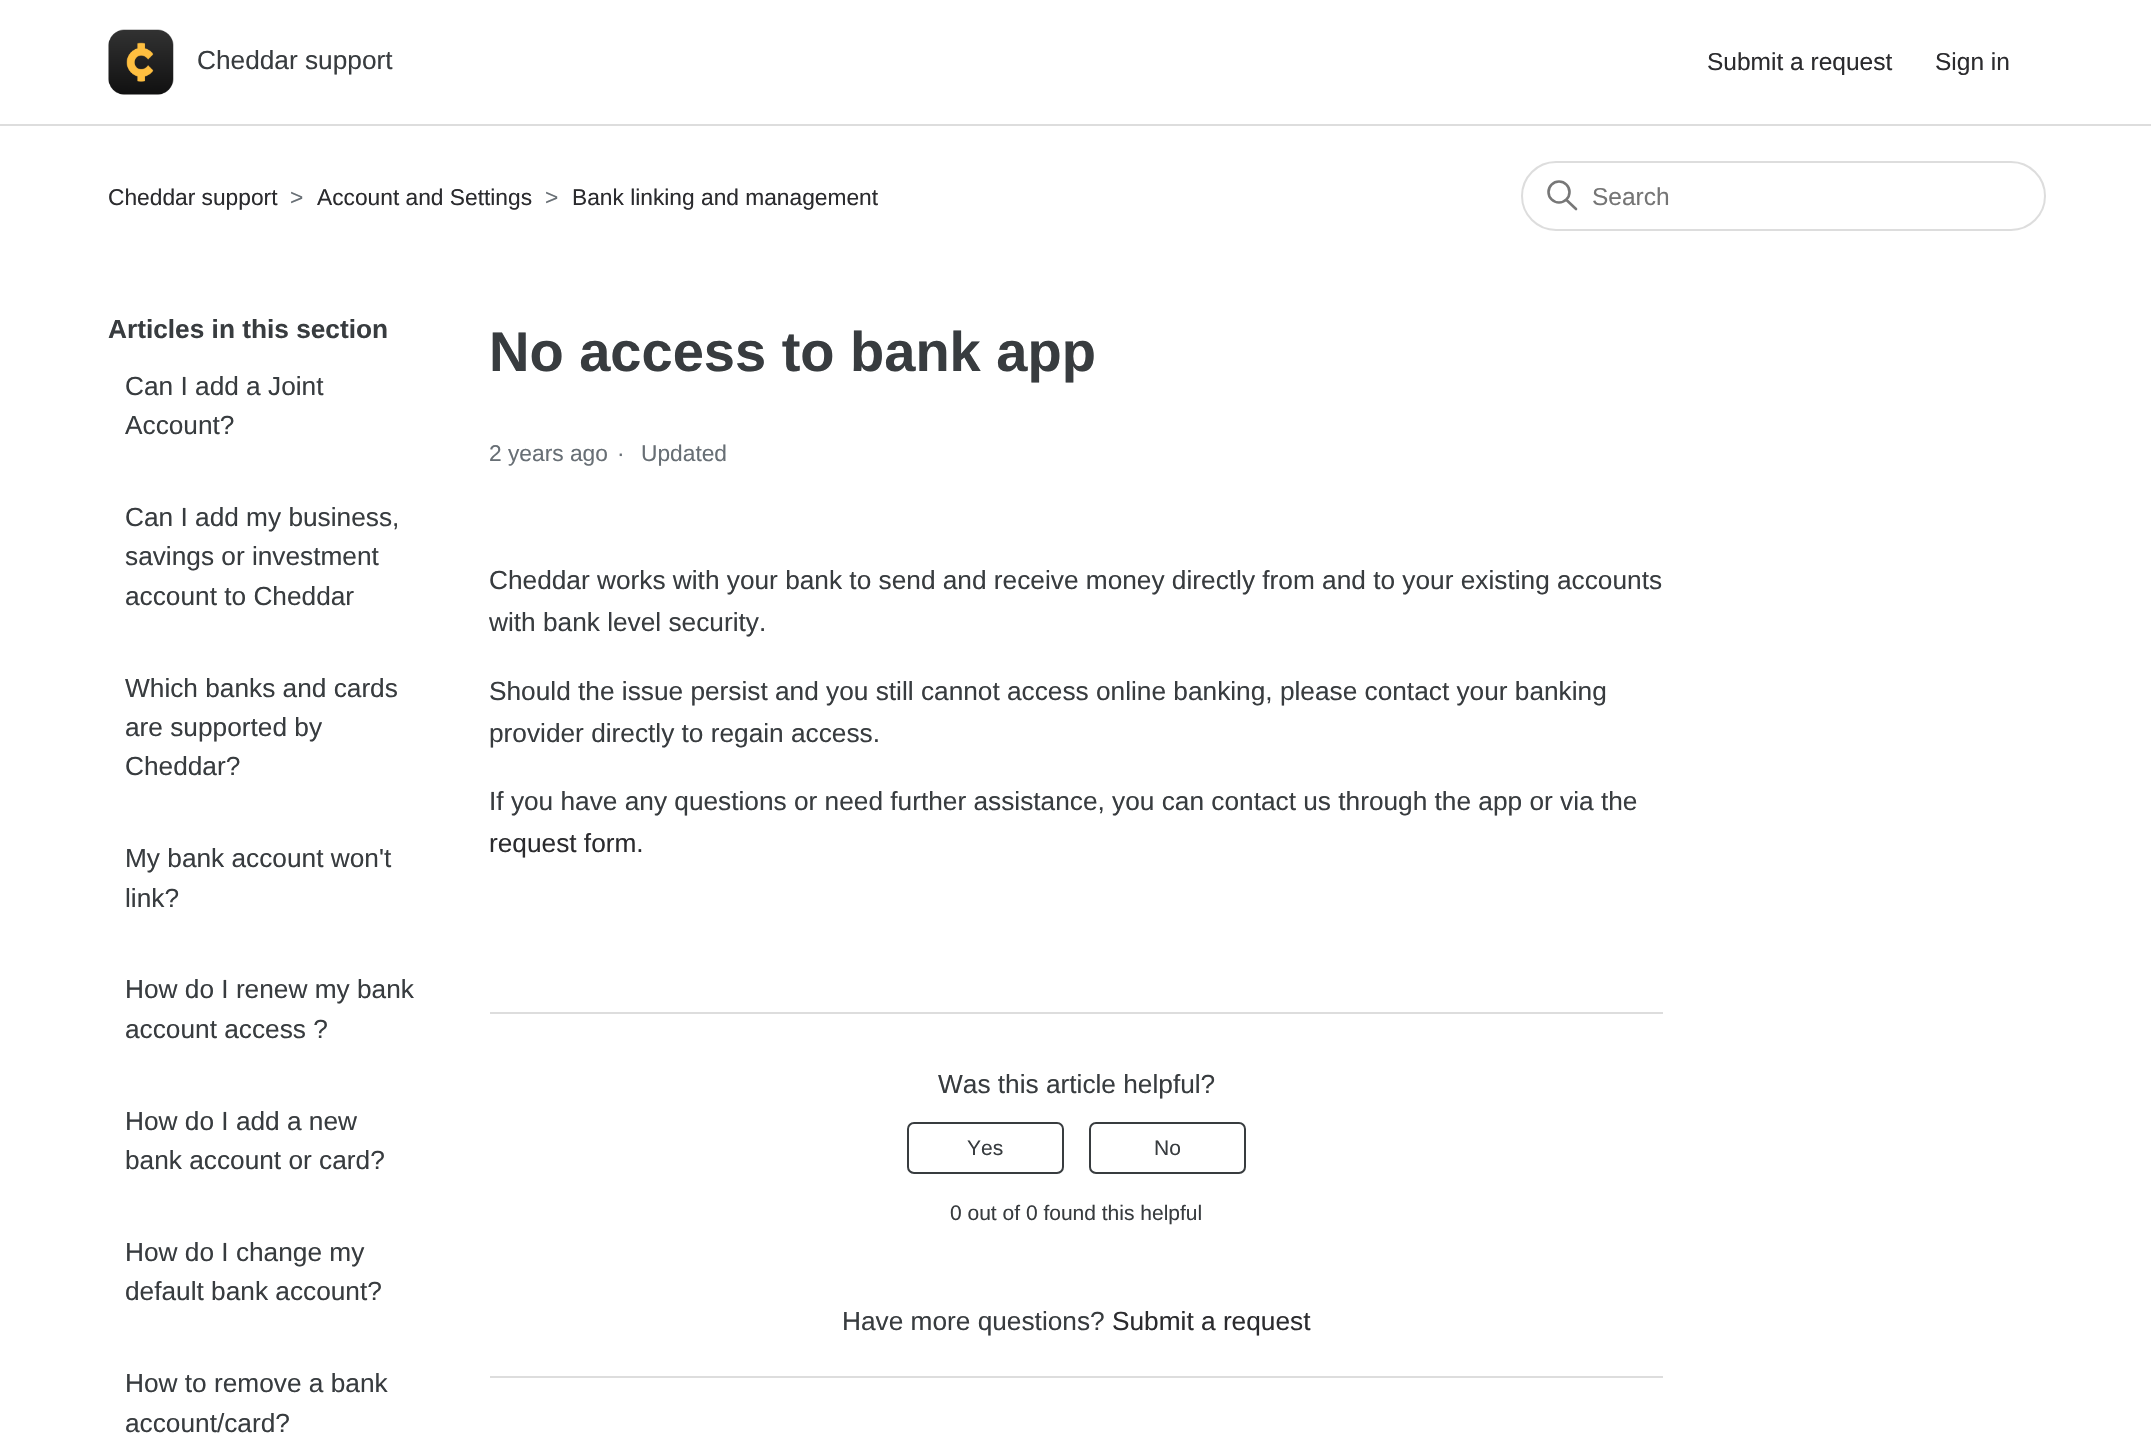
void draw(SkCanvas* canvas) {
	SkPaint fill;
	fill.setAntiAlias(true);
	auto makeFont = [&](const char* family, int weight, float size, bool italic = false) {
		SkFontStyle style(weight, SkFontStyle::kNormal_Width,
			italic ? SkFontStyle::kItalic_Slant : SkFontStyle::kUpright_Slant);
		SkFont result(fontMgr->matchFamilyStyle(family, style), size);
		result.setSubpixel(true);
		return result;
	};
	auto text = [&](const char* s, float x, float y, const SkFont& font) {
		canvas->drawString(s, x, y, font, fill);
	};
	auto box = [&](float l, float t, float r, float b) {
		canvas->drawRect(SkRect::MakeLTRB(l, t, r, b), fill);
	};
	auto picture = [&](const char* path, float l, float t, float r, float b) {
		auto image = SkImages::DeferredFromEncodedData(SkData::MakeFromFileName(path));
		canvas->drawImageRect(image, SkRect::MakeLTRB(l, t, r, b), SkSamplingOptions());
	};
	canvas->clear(0xFFFFFFFF);
	picture("image0.png", 108, 29, 174, 95);
	fill.setColor(0xFFDDDDDD);
	box(0, 124, 2151, 126);
	fill.setStyle(SkPaint::kStroke_Style);
	fill.setStrokeWidth(2);
	canvas->drawRoundRect(SkRect::MakeLTRB(1522, 162, 2045, 230), 34, 34, fill);
	fill.setStrokeWidth(2.6f);
	fill.setColor(0xFF777777);
	canvas->drawCircle(1559, 192, 10.5f, fill);
	fill.setStrokeCap(SkPaint::kRound_Cap);
	canvas->drawPath(SkPathBuilder().moveTo(1576, 209).lineTo(1566.5f, 200).detach(), fill);
	fill.setStyle(SkPaint::kFill_Style);
	fill.setColor(0xFFDDDDDD);
	box(490, 1012, 1663, 1014);
	fill.setStyle(SkPaint::kStroke_Style);
	fill.setStrokeWidth(2);
	fill.setStrokeCap(SkPaint::kButt_Cap);
	fill.setColor(0xFF383C3F);
	canvas->drawRoundRect(SkRect::MakeLTRB(908, 1123, 1063, 1173), 6, 6, fill);
	canvas->drawRoundRect(SkRect::MakeLTRB(1090, 1123, 1245, 1173), 6, 6, fill);
	fill.setStyle(SkPaint::kFill_Style);
	fill.setColor(0xFFDDDDDD);
	box(490, 1376, 1663, 1378);
	auto font1 = makeFont("Liberation Sans", 400, 26.25f);
	fill.setColor(0xFF383C3F);
	text("Cheddar support", 197, 69, font1);
	auto font2 = makeFont("Liberation Sans", 400, 24.5f);
	fill.setColor(0xFF2B2B2E);
	text("Submit a request", 1707, 70, font2);
	text("Sign in", 1935, 70, font2);
	auto font3 = makeFont("Liberation Sans", 400, 22.75f);
	text("Cheddar support", 108, 205, font3);
	fill.setColor(0xFF686F75);
	text(">", 290, 205, font3);
	fill.setColor(0xFF2B2B2E);
	text("Account and Settings", 317, 205, font3);
	fill.setColor(0xFF686F75);
	text(">", 545, 205, font3);
	fill.setColor(0xFF2B2B2E);
	text("Bank linking and management", 572, 205, font3);
	fill.setColor(0xFF757575);
	text("Search", 1592, 205, font2);
	auto font4 = makeFont("Liberation Sans", 700, 26.25f);
	fill.setColor(0xFF383C3F);
	text("Articles in this section", 108, 338, font4);
	text("Can I add a Joint", 125, 395, font1);
	text("Account?", 125, 434, font1);
	text("Can I add my business,", 125, 526, font1);
	text("savings or investment", 125, 565, font1);
	text("account to Cheddar", 125, 605, font1);
	text("Which banks and cards", 125, 697, font1);
	text("are supported by", 125, 736, font1);
	text("Cheddar?", 125, 775, font1);
	text("My bank account won't", 125, 867, font1);
	text("link?", 125, 907, font1);
	text("How do I renew my bank", 125, 998, font1);
	text("account access ?", 125, 1038, font1);
	text("How do I add a new", 125, 1130, font1);
	text("bank account or card?", 125, 1169, font1);
	text("How do I change my", 125, 1261, font1);
	text("default bank account?", 125, 1300, font1);
	text("How to remove a bank", 125, 1392, font1);
	text("account/card?", 125, 1432, font1);
	auto font5 = makeFont("Liberation Sans", 700, 56);
	text("No access to bank app", 489, 371, font5);
	fill.setColor(0xFF686F75);
	text("2 years ago", 489, 461, font3);
	text("·", 617, 461, font3);
	text("Updated", 641, 461, font3);
	fill.setColor(0xFF383C3F);
	text("Cheddar works with your bank to send and receive money directly from and to your existing accounts", 489, 589, font1);
	text("with bank level security.", 489, 631, font1);
	text("Should the issue persist and you still cannot access online banking, please contact your banking", 489, 700, font1);
	text("provider directly to regain access.", 489, 742, font1);
	text("If you have any questions or need further assistance, you can contact us through the app or via the", 489, 810, font1);
	fill.setColor(0xFF2B2B2E);
	text("request form.", 489, 852, font1);
	fill.setColor(0xFF383C3F);
	text("Was this article helpful?", 938, 1093, font1);
	auto font6 = makeFont("Liberation Sans", 400, 21);
	text("Yes", 967, 1155, font6);
	text("No", 1154, 1155, font6);
	text("0 out of 0 found this helpful", 950, 1220, font6);
	text("Have more questions?", 842, 1330, font1);
	fill.setColor(0xFF2B2B2E);
	text("Submit a request", 1112, 1330, font1);
}
